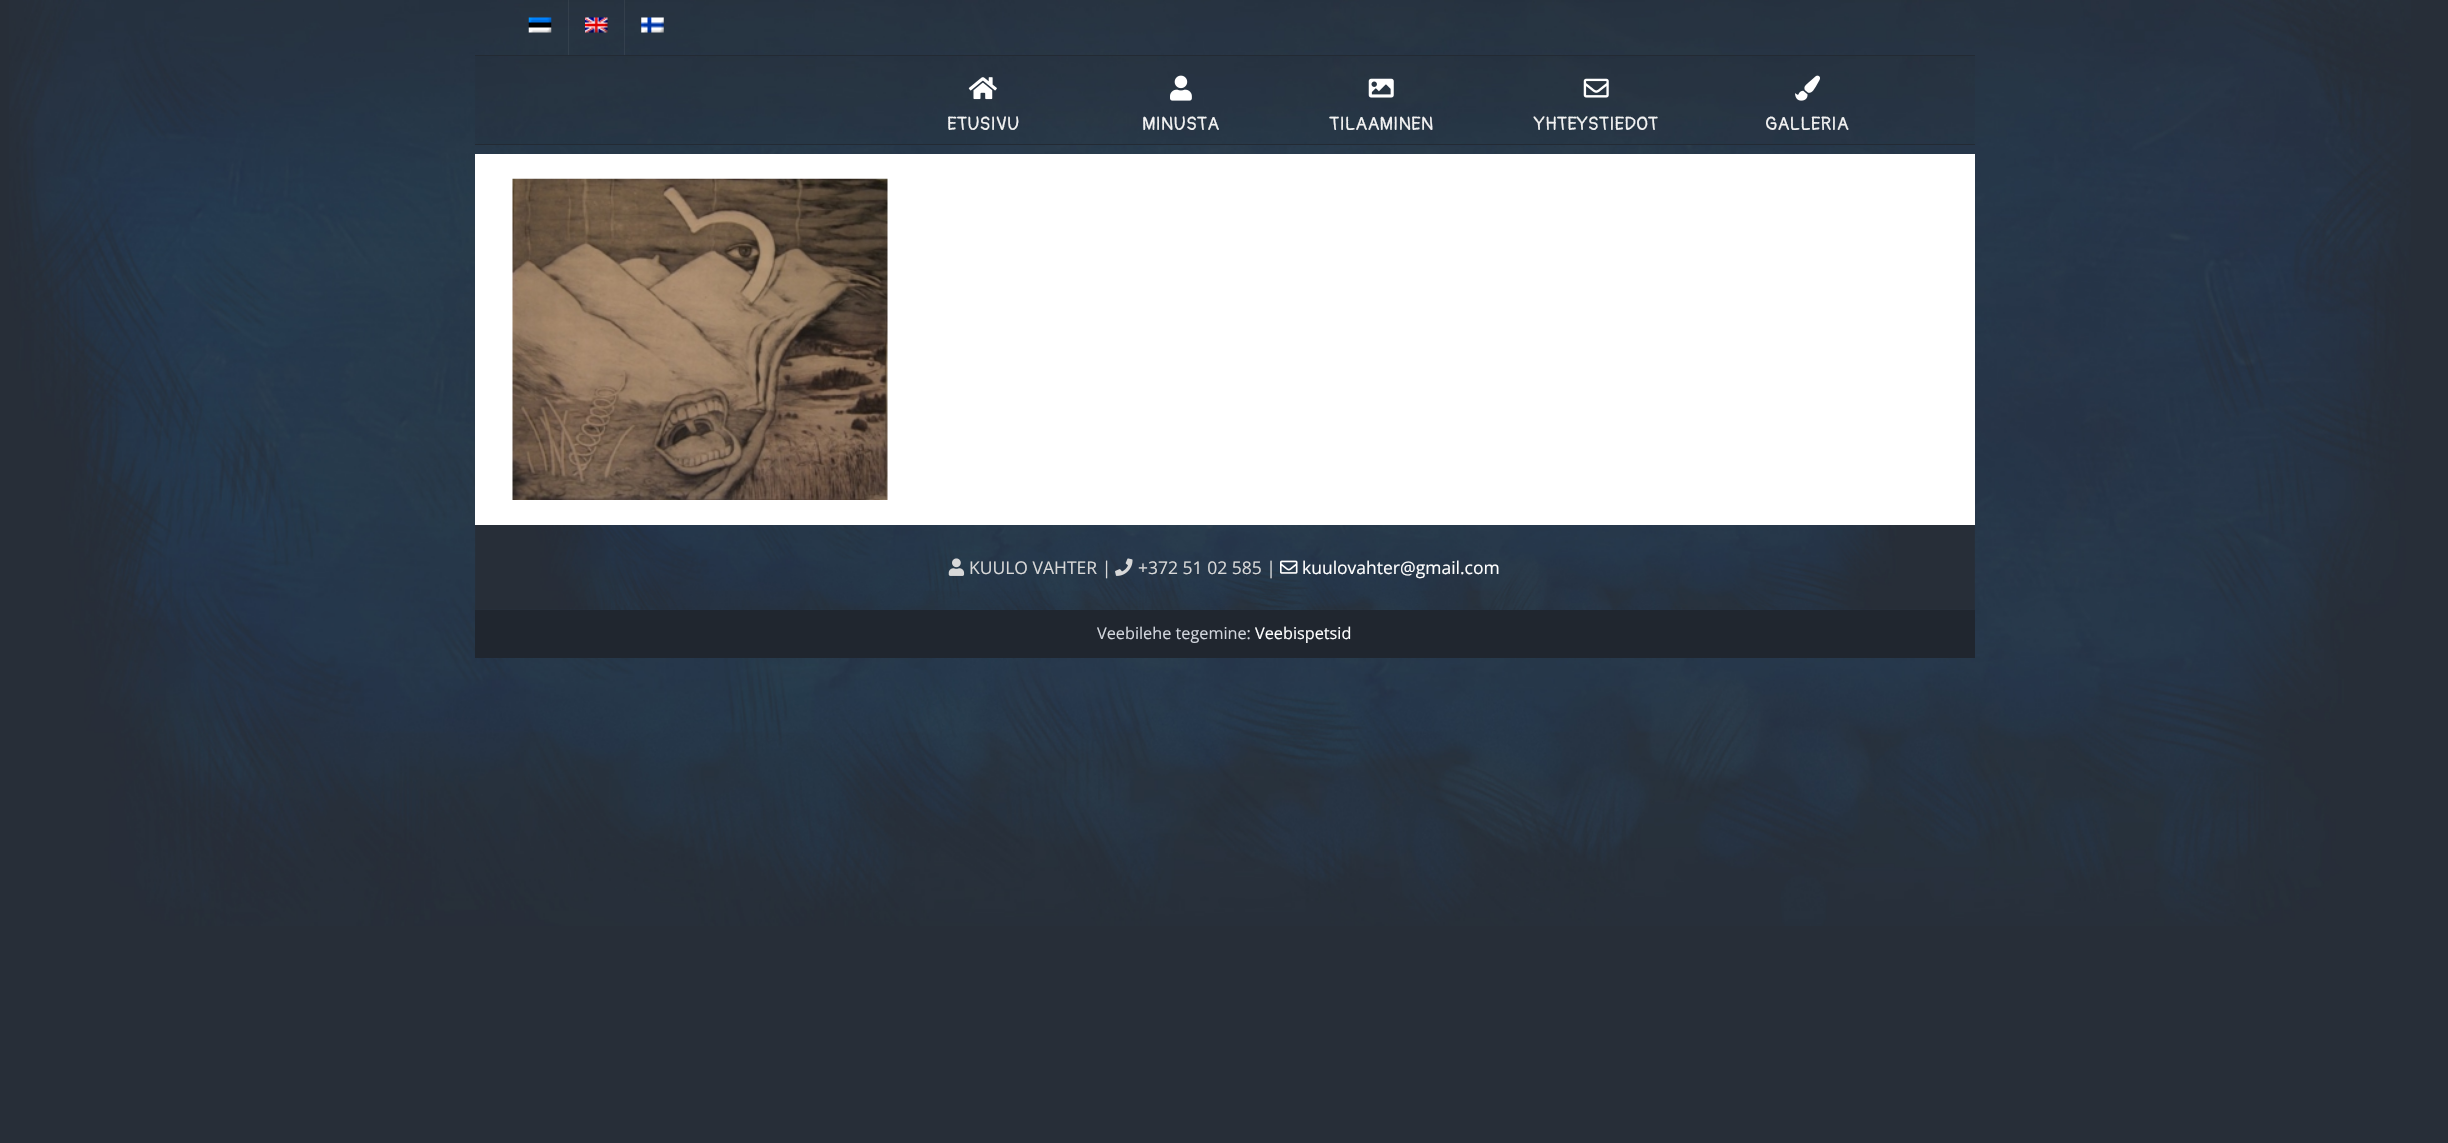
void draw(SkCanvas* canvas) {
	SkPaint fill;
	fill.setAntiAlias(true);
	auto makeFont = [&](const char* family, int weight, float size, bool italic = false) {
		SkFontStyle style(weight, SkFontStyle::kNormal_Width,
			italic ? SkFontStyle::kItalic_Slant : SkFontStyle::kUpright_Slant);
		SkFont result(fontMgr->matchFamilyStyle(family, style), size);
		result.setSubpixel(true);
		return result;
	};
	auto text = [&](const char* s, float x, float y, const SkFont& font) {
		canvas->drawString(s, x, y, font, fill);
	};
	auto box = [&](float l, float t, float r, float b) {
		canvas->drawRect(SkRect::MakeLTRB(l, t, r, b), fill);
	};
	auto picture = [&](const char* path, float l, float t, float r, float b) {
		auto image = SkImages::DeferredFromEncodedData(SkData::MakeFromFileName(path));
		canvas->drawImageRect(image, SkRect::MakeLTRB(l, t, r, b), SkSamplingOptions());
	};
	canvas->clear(0xFF272E38);
	picture("image0.png", 9, 658, 2411, 926);
	picture("image1.png", 9, 0, 2411, 658);
	fill.setColor(0xFF232A33);
	box(475, 55, 1975, 56);
	picture("image2.png", 528, 17, 552, 33);
	fill.setColor(0x0FFFFFFF);
	box(568, 0, 569, 55);
	picture("image3.png", 585, 17, 608, 33);
	box(624, 0, 625, 55);
	picture("image4.png", 641, 17, 664, 33);
	picture("image5.png", 475, 56, 1975, 144);
	fill.setColor(0xFF232A33);
	box(475, 144, 1975, 145);
	picture("image6.png", 968, 77, 997, 100);
	picture("image7.png", 1170, 75, 1192, 101);
	picture("image8.png", 1368, 78, 1394, 98);
	picture("image9.png", 1583, 78, 1609, 98);
	picture("image10.png", 1795, 75, 1820, 101);
	fill.setColor(0xFFFFFFFF);
	box(475, 154, 1975, 525);
	picture("image11.png", 512, 178, 888, 500);
	picture("image12.png", 475, 525, 1975, 610);
	picture("image13.png", 948, 558, 965, 576);
	picture("image14.png", 1115, 558, 1133, 576);
	picture("image15.png", 1280, 560, 1298, 574);
	fill.setColor(0xFF20262F);
	box(475, 610, 1975, 658);
	auto font1 = makeFont("Pangolin", 400, 18.75f);
	fill.setColor(0xFFF2F2F2);
	text("ETUSIVU", 947, 130, font1);
	text("MINUSTA", 1142, 130, font1);
	text("TILAAMINEN", 1329, 130, font1);
	text("YHTEYSTIEDOT", 1534, 130, font1);
	text("GALLERIA", 1765, 130, font1);
	auto font2 = makeFont("Open Sans", 400, 17.5f);
	fill.setColor(0xFFD8D8D8);
	text("KUULO VAHTER |", 969, 574, font2);
	text("+372 51 02 585 |", 1138, 574, font2);
	fill.setColor(0xFFFFFFFF);
	text("kuulovahter@gmail.com", 1302, 574, font2);
	auto font3 = makeFont("Open Sans", 400, 16.25f);
	fill.setColor(0xFFD2D6DD);
	text("Veebilehe tegemine:", 1097, 639, font3);
	fill.setColor(0xFFFFFFFF);
	text("Veebispetsid", 1255, 639, font3);
}
